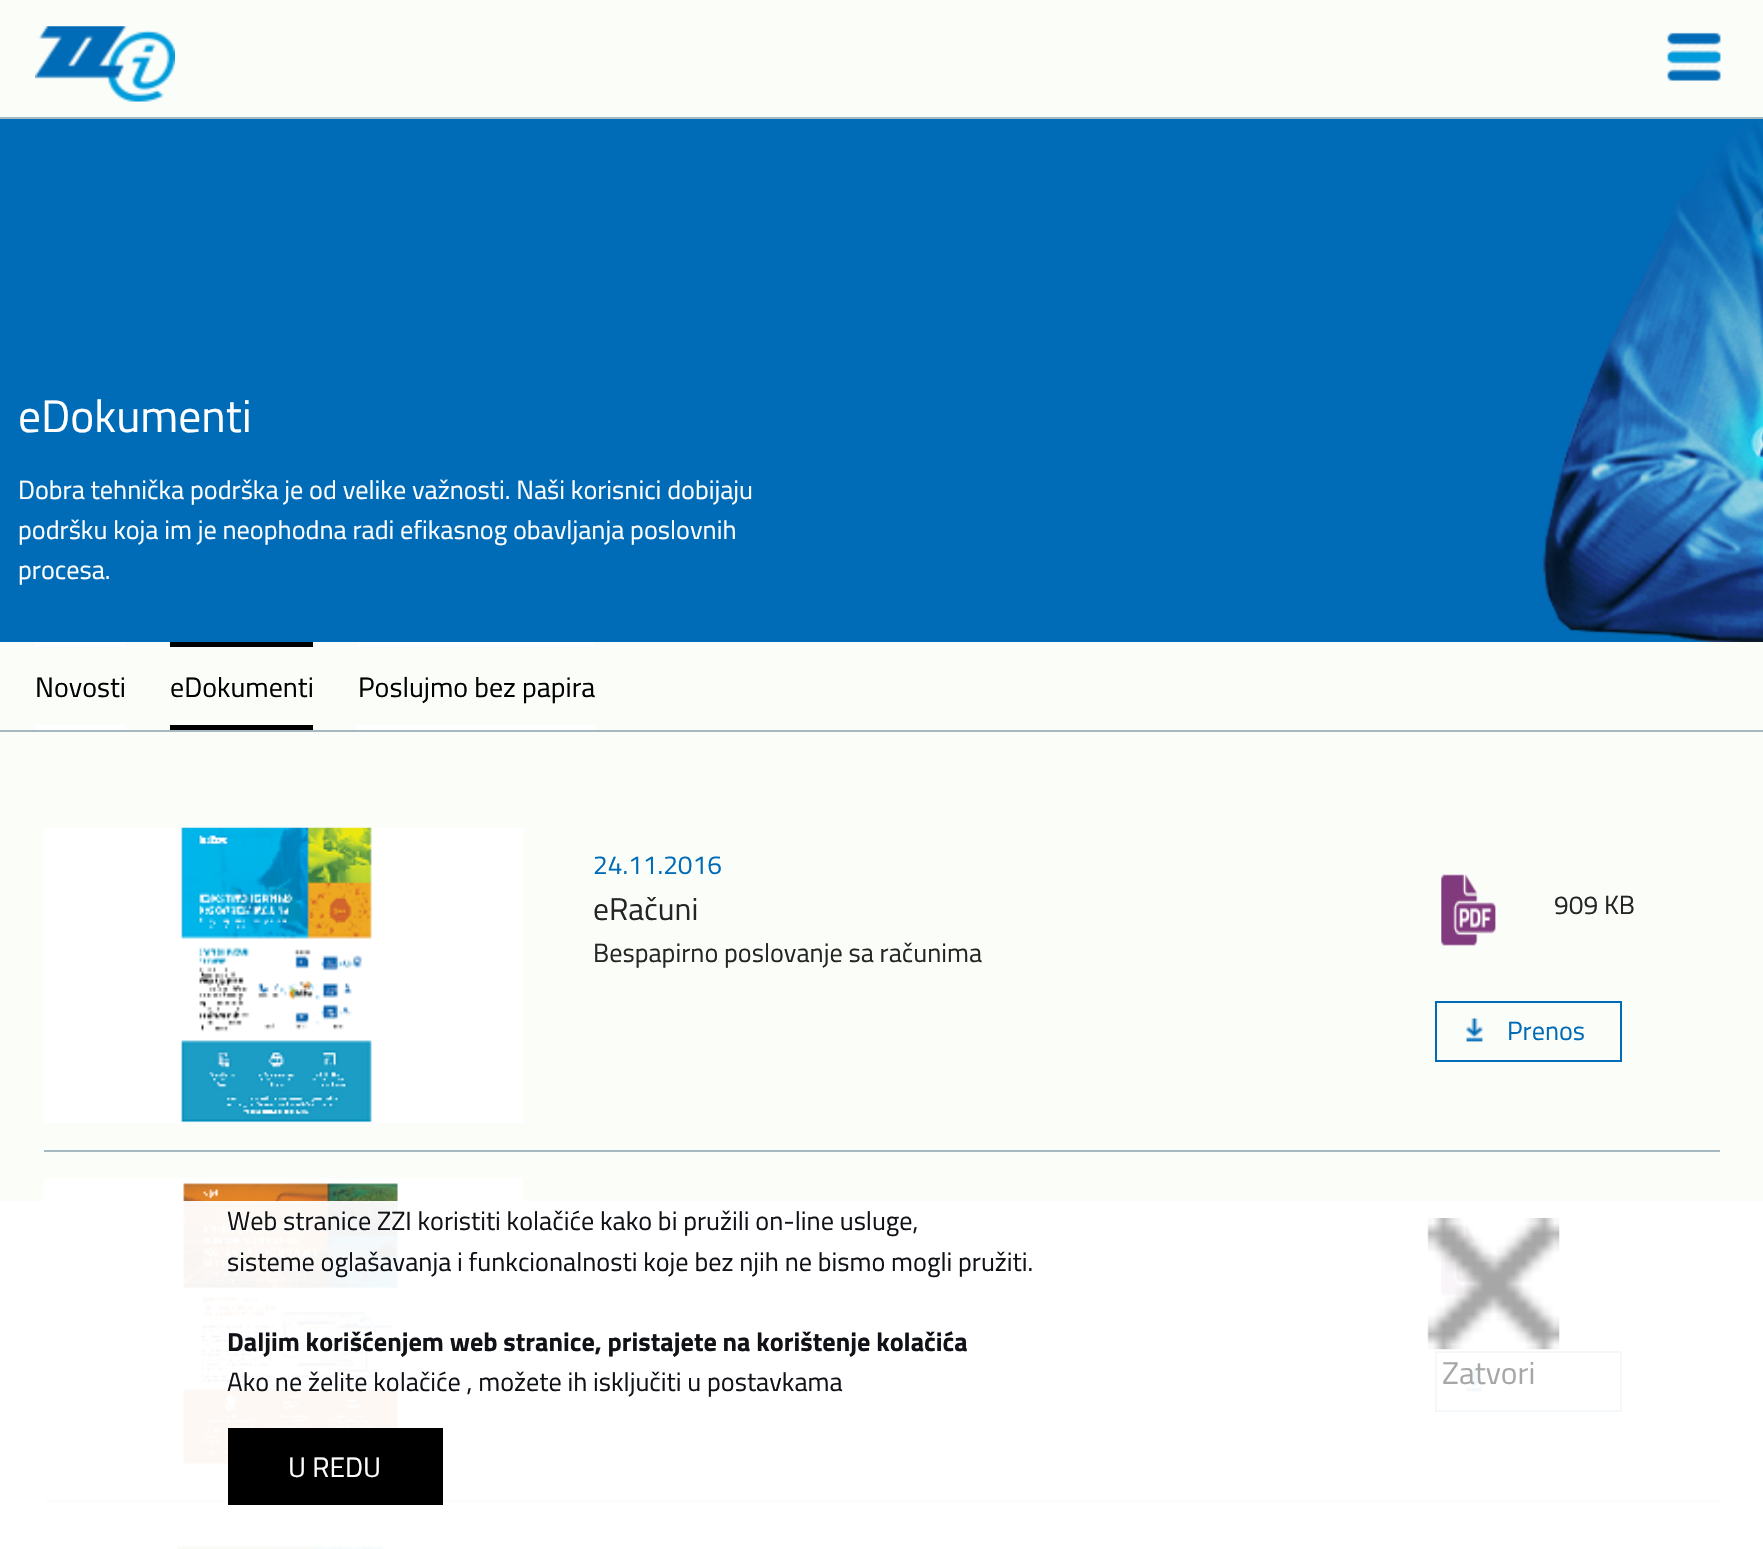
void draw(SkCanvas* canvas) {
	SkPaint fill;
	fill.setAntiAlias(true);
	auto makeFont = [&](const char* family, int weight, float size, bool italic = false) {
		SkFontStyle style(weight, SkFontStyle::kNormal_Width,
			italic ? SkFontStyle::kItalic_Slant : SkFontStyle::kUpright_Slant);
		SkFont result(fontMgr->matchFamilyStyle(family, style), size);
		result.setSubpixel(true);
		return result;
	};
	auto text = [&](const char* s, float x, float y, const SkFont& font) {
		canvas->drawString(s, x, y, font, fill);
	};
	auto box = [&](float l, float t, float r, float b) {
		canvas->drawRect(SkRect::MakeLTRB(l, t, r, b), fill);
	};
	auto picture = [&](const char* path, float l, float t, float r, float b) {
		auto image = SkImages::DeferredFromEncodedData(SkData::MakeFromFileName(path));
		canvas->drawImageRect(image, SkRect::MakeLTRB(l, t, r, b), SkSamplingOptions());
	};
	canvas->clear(0xFFFBFDF9);
	fill.setColor(0xFFFFFFFF);
	box(0, 1201, 1763, 1549);
	fill.setColor(0xFFA6B9C0);
	box(0, 117, 1763, 119);
	picture("image0.png", 35, 26, 175, 102);
	picture("image1.png", 1667, 32, 1721, 81);
	picture("image2.png", 0, 119, 1763, 642);
	box(0, 730, 1763, 732);
	fill.setColor(0xFFFFFFFF);
	box(35, 642, 126, 647);
	box(35, 725, 126, 730);
	fill.setColor(0xFF000000);
	box(170, 642, 313, 647);
	box(170, 725, 313, 730);
	fill.setColor(0xFFFFFFFF);
	box(357, 642, 595, 647);
	box(357, 725, 595, 730);
	fill.setColor(0xFFA6B9C0);
	box(44, 1150, 1720, 1152);
	picture("image3.png", 44, 827, 523, 1123);
	picture("image4.png", 1441, 874, 1496, 946);
	picture("image5.png", 1466, 1018, 1483, 1042);
	fill.setStyle(SkPaint::kStroke_Style);
	fill.setStrokeWidth(2);
	fill.setColor(0xFF006BB6);
	canvas->drawRect(SkRect::MakeLTRB(1436, 1002, 1621, 1061), fill);
	fill.setStyle(SkPaint::kFill_Style);
	fill.setColor(0xFFFBFCFC);
	box(44, 1500, 1720, 1502);
	picture("image6.png", 44, 1178, 523, 1473);
	picture("image7.png", 1441, 1224, 1496, 1296);
	picture("image8.png", 1466, 1368, 1483, 1392);
	fill.setStyle(SkPaint::kStroke_Style);
	fill.setColor(0xFFF2F8FB);
	canvas->drawRect(SkRect::MakeLTRB(1436, 1352, 1621, 1411), fill);
	picture("image9.png", 44, 1528, 523, 1549);
	picture("image10.png", 1427, 1218, 1560, 1350);
	fill.setStyle(SkPaint::kFill_Style);
	fill.setColor(0xFF000000);
	box(228, 1428, 443, 1505);
	auto font1 = makeFont("Titillium Web", 400, 45.5f);
	fill.setColor(0xFFFFFFFF);
	text("eDokumenti", 18, 432, font1);
	auto font2 = makeFont("Titillium Web", 400, 26.25f);
	text("Dobra tehnička podrška je od velike važnosti. Naši korisnici dobijaju", 18, 499, font2);
	text("podršku koja im je neophodna radi efikasnog obavljanja poslovnih", 18, 539, font2);
	text("procesa.", 18, 579, font2);
	auto font3 = makeFont("Titillium Web", 400, 28);
	fill.setColor(0xFF000000);
	text("Novosti", 35, 697, font3);
	text("eDokumenti", 170, 697, font3);
	text("Poslujmo bez papira", 358, 697, font3);
	fill.setColor(0xFF006BB6);
	text("24.11.2016", 593, 874, font2);
	auto font4 = makeFont("Titillium Web", 400, 31.5f);
	fill.setColor(0xFF252525);
	text("eRačuni", 593, 920, font4);
	text("Bespapirno poslovanje sa računima", 593, 962, font2);
	text("909 KB", 1554, 914, font2);
	fill.setColor(0xFF006BB6);
	text("Prenos", 1507, 1040, font2);
	fill.setColor(0xFF101217);
	text("Web stranice ZZI koristiti kolačiće kako bi pružili on-line usluge,", 227, 1230, font2);
	text("sisteme oglašavanja i funkcionalnosti koje bez njih ne bismo mogli pružiti.", 227, 1271, font2);
	auto font5 = makeFont("Titillium Web", 700, 26.25f);
	text("Daljim korišćenjem web stranice, pristajete na korištenje kolačića", 227, 1351, font5);
	text("Ako ne želite kolačiće , možete ih isključiti u postavkama", 227, 1391, font2);
	fill.setColor(0xFFA7A7A7);
	text("Zatvori", 1442, 1384, font4);
	fill.setColor(0xFFFFFFFF);
	text("U REDU", 288, 1477, font3);
}
